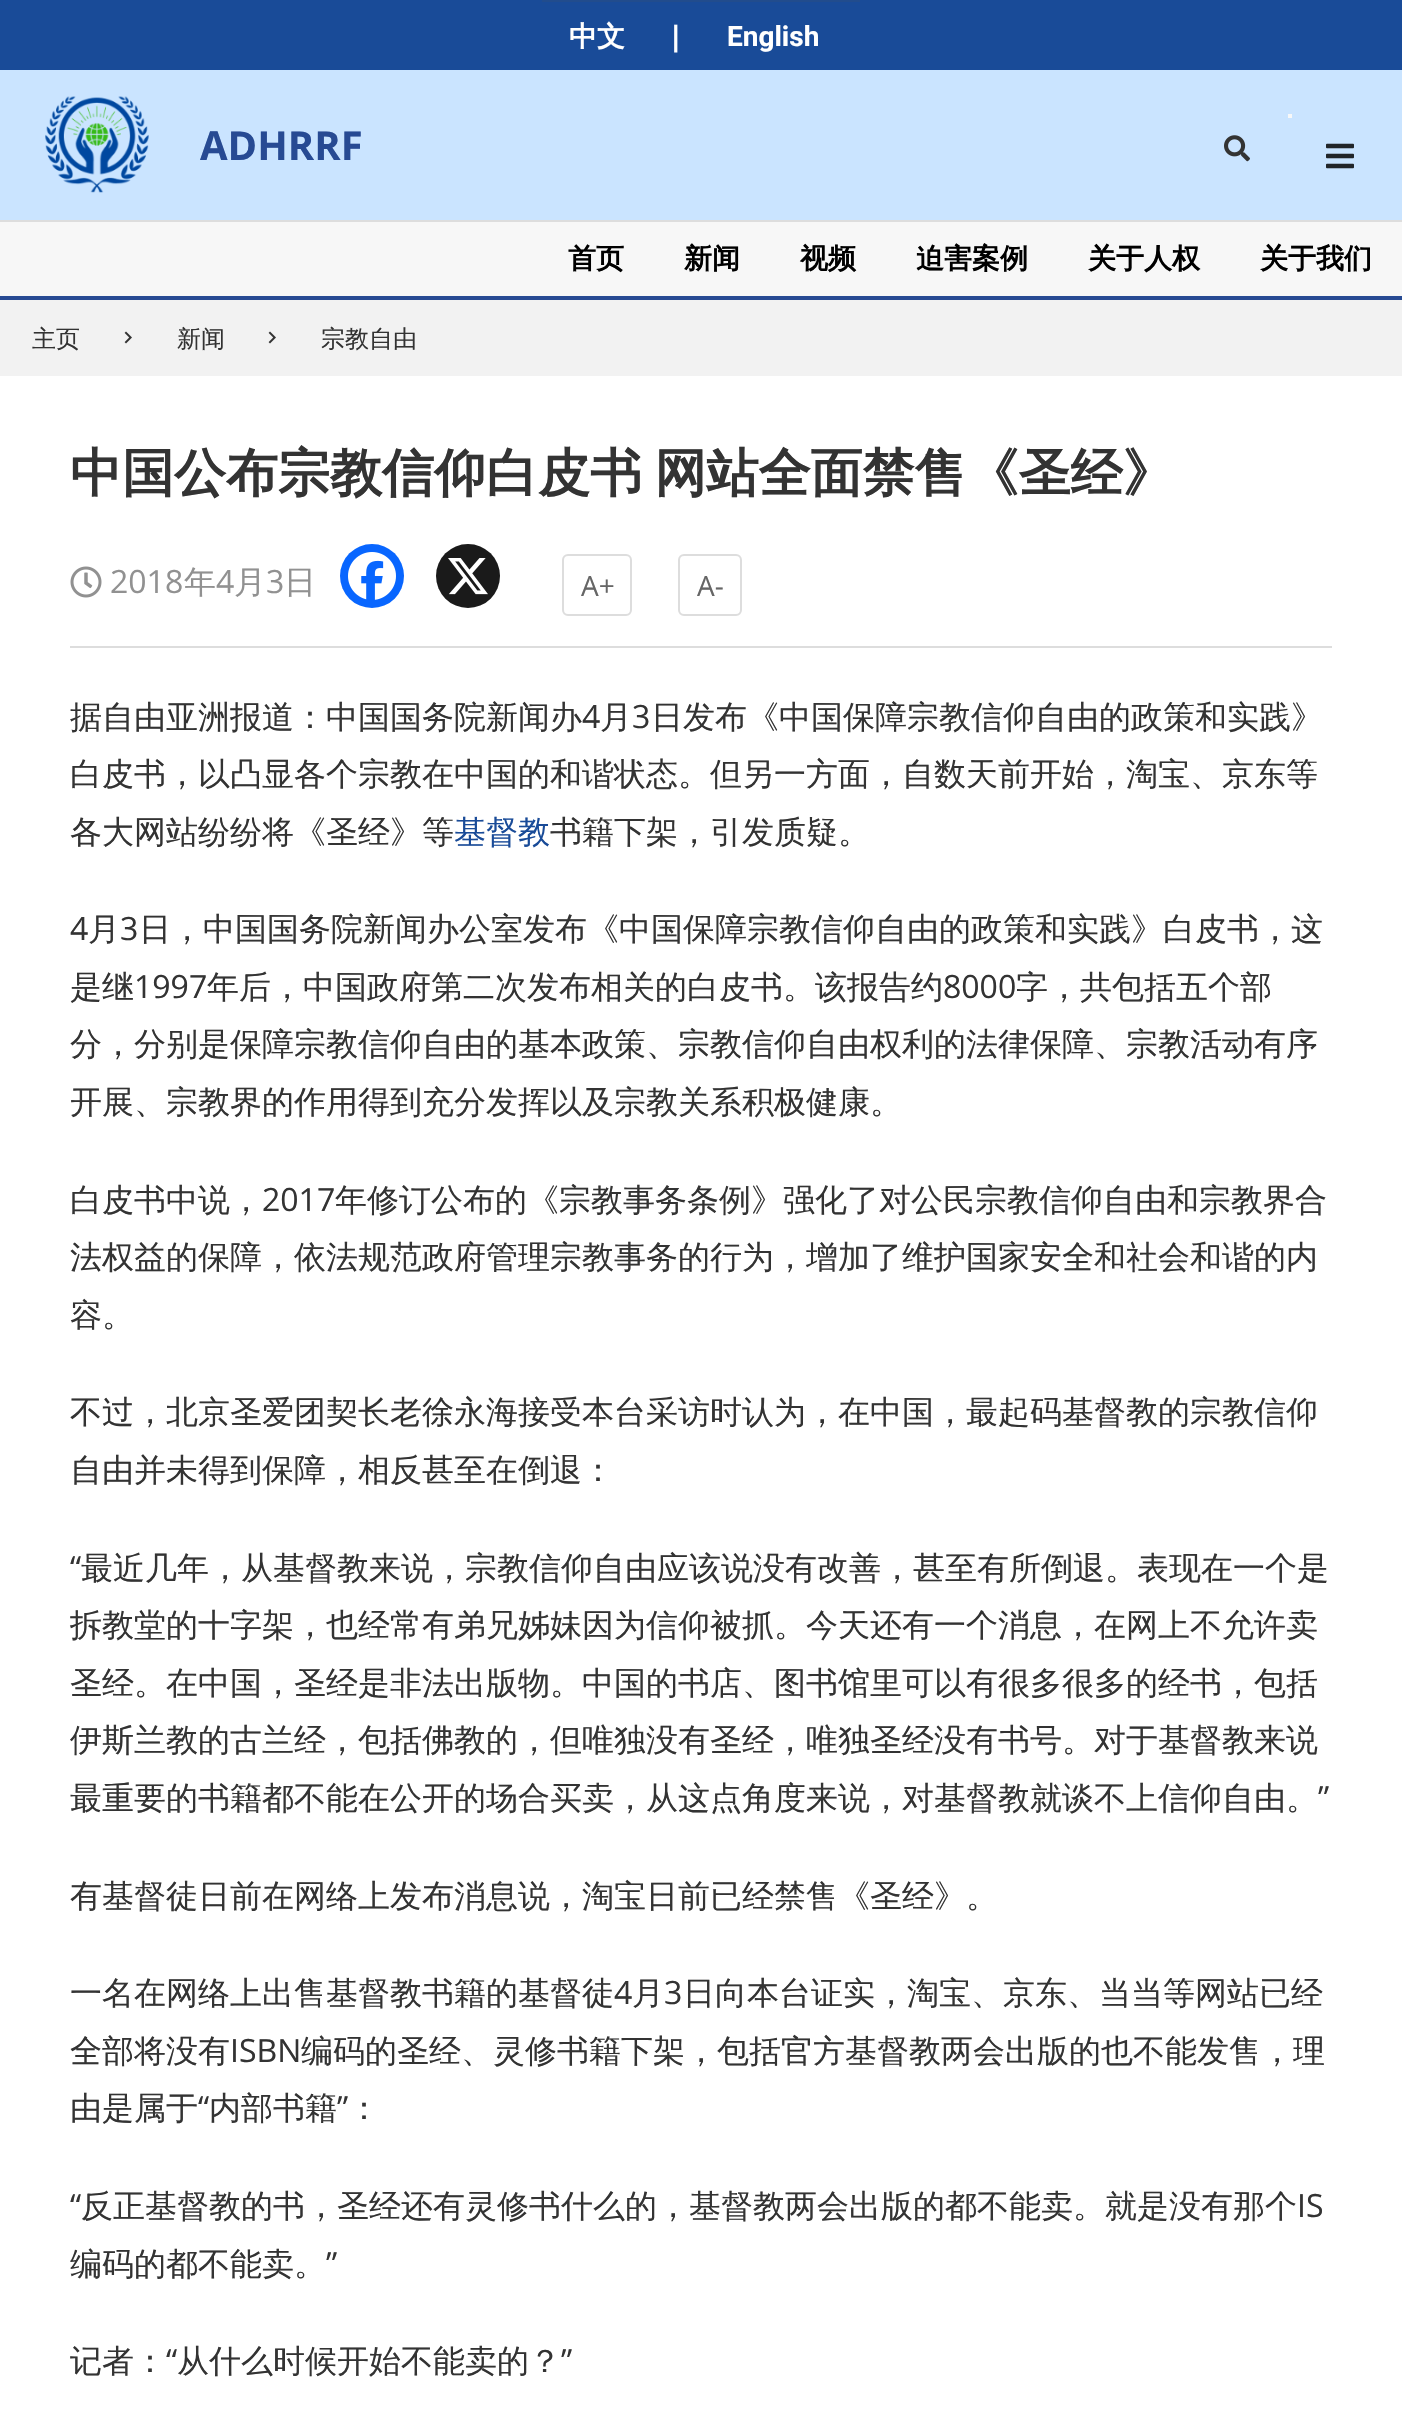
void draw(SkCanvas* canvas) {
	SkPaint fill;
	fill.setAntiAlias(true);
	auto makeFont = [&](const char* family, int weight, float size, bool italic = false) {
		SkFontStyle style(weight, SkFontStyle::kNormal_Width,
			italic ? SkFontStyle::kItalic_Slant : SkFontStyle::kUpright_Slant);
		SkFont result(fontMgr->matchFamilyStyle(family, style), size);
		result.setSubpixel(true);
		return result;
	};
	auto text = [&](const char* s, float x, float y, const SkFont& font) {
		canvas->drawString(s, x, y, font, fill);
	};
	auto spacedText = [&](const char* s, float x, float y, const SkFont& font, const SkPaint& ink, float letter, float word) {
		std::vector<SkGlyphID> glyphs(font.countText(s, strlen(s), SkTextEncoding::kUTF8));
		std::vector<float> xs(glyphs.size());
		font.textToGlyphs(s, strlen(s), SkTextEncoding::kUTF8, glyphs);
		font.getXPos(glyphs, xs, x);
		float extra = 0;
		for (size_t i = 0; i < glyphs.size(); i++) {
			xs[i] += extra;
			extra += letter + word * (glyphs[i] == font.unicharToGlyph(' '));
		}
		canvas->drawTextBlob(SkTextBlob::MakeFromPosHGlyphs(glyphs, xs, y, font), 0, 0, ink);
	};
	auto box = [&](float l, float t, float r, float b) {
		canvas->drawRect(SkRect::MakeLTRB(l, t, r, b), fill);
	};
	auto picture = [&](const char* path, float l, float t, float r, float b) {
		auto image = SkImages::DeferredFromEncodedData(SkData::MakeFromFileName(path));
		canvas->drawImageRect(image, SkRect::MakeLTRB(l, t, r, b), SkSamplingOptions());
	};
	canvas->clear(0xFFF7F7F7);
	fill.setColor(0xFF194B98);
	box(0, 0, 1402, 70);
	fill.setColor(0xFF214C8D);
	box(542, 0, 860, 2);
	fill.setColor(0xFFCAE4FF);
	box(0, 70, 1402, 220);
	picture("image0.png", 45, 96, 149, 193);
	fill.setColor(0xFFF8F8F8);
	box(1288, 114, 1292, 118);
	picture("image1.png", 1224, 135, 1250, 162);
	picture("image2.png", 1326, 143, 1354, 169);
	fill.setColor(0xFF274A93);
	box(0, 296, 1402, 300);
	fill.setColor(0xFFDDDDDD);
	box(0, 220, 1402, 222);
	fill.setColor(0xFFFFFFFF);
	box(0, 376, 1402, 2422);
	fill.setColor(0xFFF2F2F2);
	box(0, 300, 1402, 376);
	picture("image3.png", 124, 331, 132, 344);
	picture("image3.png", 268, 331, 276, 344);
	fill.setColor(0xFFDDDDDD);
	box(70, 646, 1332, 648);
	picture("image4.png", 70, 566, 102, 598);
	fill.setColor(0xFF0866FF);
	canvas->drawCircle(372, 576, 32, fill);
	picture("image5.png", 348, 552, 396, 600);
	fill.setColor(0xFF1A1A1A);
	canvas->drawCircle(468, 576, 32, fill);
	picture("image6.png", 448, 558, 488, 595);
	fill.setStyle(SkPaint::kStroke_Style);
	fill.setStrokeWidth(2);
	fill.setColor(0xFFDDDDDD);
	canvas->drawRoundRect(SkRect::MakeLTRB(563, 555, 631, 615), 5, 5, fill);
	canvas->drawRoundRect(SkRect::MakeLTRB(679, 555, 741, 615), 5, 5, fill);
	auto font1 = makeFont("WenQuanYi Zen Hei", 700, 28);
	fill.setStyle(SkPaint::kFill_Style);
	fill.setColor(0xFFFFFFFF);
	text("中文", 569, 46, font1);
	auto font2 = makeFont("Open Sans", 700, 28);
	text("|", 668, 46, font2);
	auto font3 = makeFont("Roboto", 700, 28);
	text("English", 727, 46, font3);
	auto font4 = makeFont("Open Sans", 700, 40);
	fill.setColor(0xFF274A93);
	text("ADHRRF", 200, 160, font4);
	fill.setColor(0xFF000000);
	text("首页", 568, 268, font1);
	text("新闻", 684, 268, font1);
	text("视频", 800, 268, font1);
	text("迫害案例", 916, 268, font1);
	text("关于人权", 1088, 268, font1);
	text("关于我们", 1260, 268, font1);
	auto font5 = makeFont("WenQuanYi Zen Hei", 500, 24);
	fill.setColor(0xFF333333);
	text("主页", 32, 347, font5);
	text("新闻", 177, 347, font5);
	text("宗教自由", 321, 347, font5);
	auto font6 = makeFont("WenQuanYi Zen Hei", 700, 52);
	spacedText("中国公布宗教信仰白皮书 网站全面禁售《圣经》", 70, 491, font6, fill, 0, -3);
	auto font7 = makeFont("Open Sans", 400, 32);
	fill.setColor(0xFF919191);
	text("2018", 110, 593, font7);
	auto font8 = makeFont("WenQuanYi Zen Hei", 500, 32);
	text("年", 184, 593, font8);
	text("4", 216, 593, font7);
	text("月", 234, 593, font8);
	text("3", 266, 593, font7);
	text("日", 284, 593, font8);
	auto font9 = makeFont("Open Sans", 400, 28);
	fill.setColor(0xFF666666);
	text("A+", 581, 596, font9);
	text("A-", 697, 596, font9);
	fill.setColor(0xFF333333);
	text("据自由亚洲报道：中国国务院新闻办", 70, 728, font8);
	text("4", 582, 728, font7);
	text("月", 600, 728, font8);
	text("3", 632, 728, font7);
	text("日发布《中国保障宗教信仰自由的政策和实践》", 651, 728, font8);
	text("白皮书，以凸显各个宗教在中国的和谐状态。但另一方面，自数天前开始，淘宝、京东等", 70, 785, font8);
	text("各大网站纷纷将《圣经》等", 70, 843, font8);
	fill.setColor(0xFF194B98);
	text("基督教", 454, 843, font8);
	fill.setColor(0xFF333333);
	text("书籍下架，引发质疑。", 550, 843, font8);
	text("4", 70, 940, font7);
	text("月", 88, 940, font8);
	text("3", 120, 940, font7);
	text("日，中国国务院新闻办公室发布《中国保障宗教信仰自由的政策和实践》白皮书，这", 139, 940, font8);
	text("是继", 70, 998, font8);
	text("1997", 134, 998, font7);
	text("年后，中国政府第二次发布相关的白皮书。该报告约", 207, 998, font8);
	text("8000", 943, 998, font7);
	text("字，共包括五个部", 1016, 998, font8);
	text("分，分别是保障宗教信仰自由的基本政策、宗教信仰自由权利的法律保障、宗教活动有序", 70, 1055, font8);
	text("开展、宗教界的作用得到充分发挥以及宗教关系积极健康。", 70, 1113, font8);
	text("白皮书中说，", 70, 1211, font8);
	text("2017", 262, 1211, font7);
	text("年修订公布的《宗教事务条例》强化了对公民宗教信仰自由和宗教界合", 335, 1211, font8);
	text("法权益的保障，依法规范政府管理宗教事务的行为，增加了维护国家安全和社会和谐的内", 70, 1268, font8);
	text("容。", 70, 1326, font8);
	text("不过，北京圣爱团契长老徐永海接受本台采访时认为，在中国，最起码基督教的宗教信仰", 70, 1423, font8);
	text("自由并未得到保障，相反甚至在倒退：", 70, 1481, font8);
	text("“", 70, 1579, font7);
	text("最近几年，从基督教来说，宗教信仰自由应该说没有改善，甚至有所倒退。表现在一个是", 81, 1579, font8);
	text("拆教堂的十字架，也经常有弟兄姊妹因为信仰被抓。今天还有一个消息，在网上不允许卖", 70, 1636, font8);
	text("圣经。在中国，圣经是非法出版物。中国的书店、图书馆里可以有很多很多的经书，包括", 70, 1694, font8);
	text("伊斯兰教的古兰经，包括佛教的，但唯独没有圣经，唯独圣经没有书号。对于基督教来说", 70, 1751, font8);
	text("最重要的书籍都不能在公开的场合买卖，从这点角度来说，对基督教就谈不上信仰自由。", 70, 1809, font8);
	text("”", 1318, 1809, font7);
	text("有基督徒日前在网络上发布消息说，淘宝日前已经禁售《圣经》。", 70, 1907, font8);
	text("一名在网络上出售基督教书籍的基督徒", 70, 2004, font8);
	text("4", 614, 2004, font7);
	text("月", 632, 2004, font8);
	text("3", 664, 2004, font7);
	text("日向本台证实，淘宝、京东、当当等网站已经", 683, 2004, font8);
	text("全部将没有", 70, 2062, font8);
	text("ISBN", 230, 2062, font7);
	text("编码的圣经、灵修书籍下架，包括官方基督教两会出版的也不能发售，理", 301, 2062, font8);
	text("由是属于", 70, 2119, font8);
	text("“", 198, 2119, font7);
	text("内部书籍", 209, 2119, font8);
	text("”", 337, 2119, font7);
	text("：", 348, 2119, font8);
	text("“", 70, 2217, font7);
	text("反正基督教的书，圣经还有灵修书什么的，基督教两会出版的都不能卖。就是没有那个", 81, 2217, font8);
	text("IS", 1297, 2217, font7);
	text("编码的都不能卖。", 70, 2275, font8);
	text("”", 326, 2275, font7);
	text("记者：", 70, 2372, font8);
	text("“", 166, 2372, font7);
	text("从什么时候开始不能卖的？", 177, 2372, font8);
	text("”", 561, 2372, font7);
}
